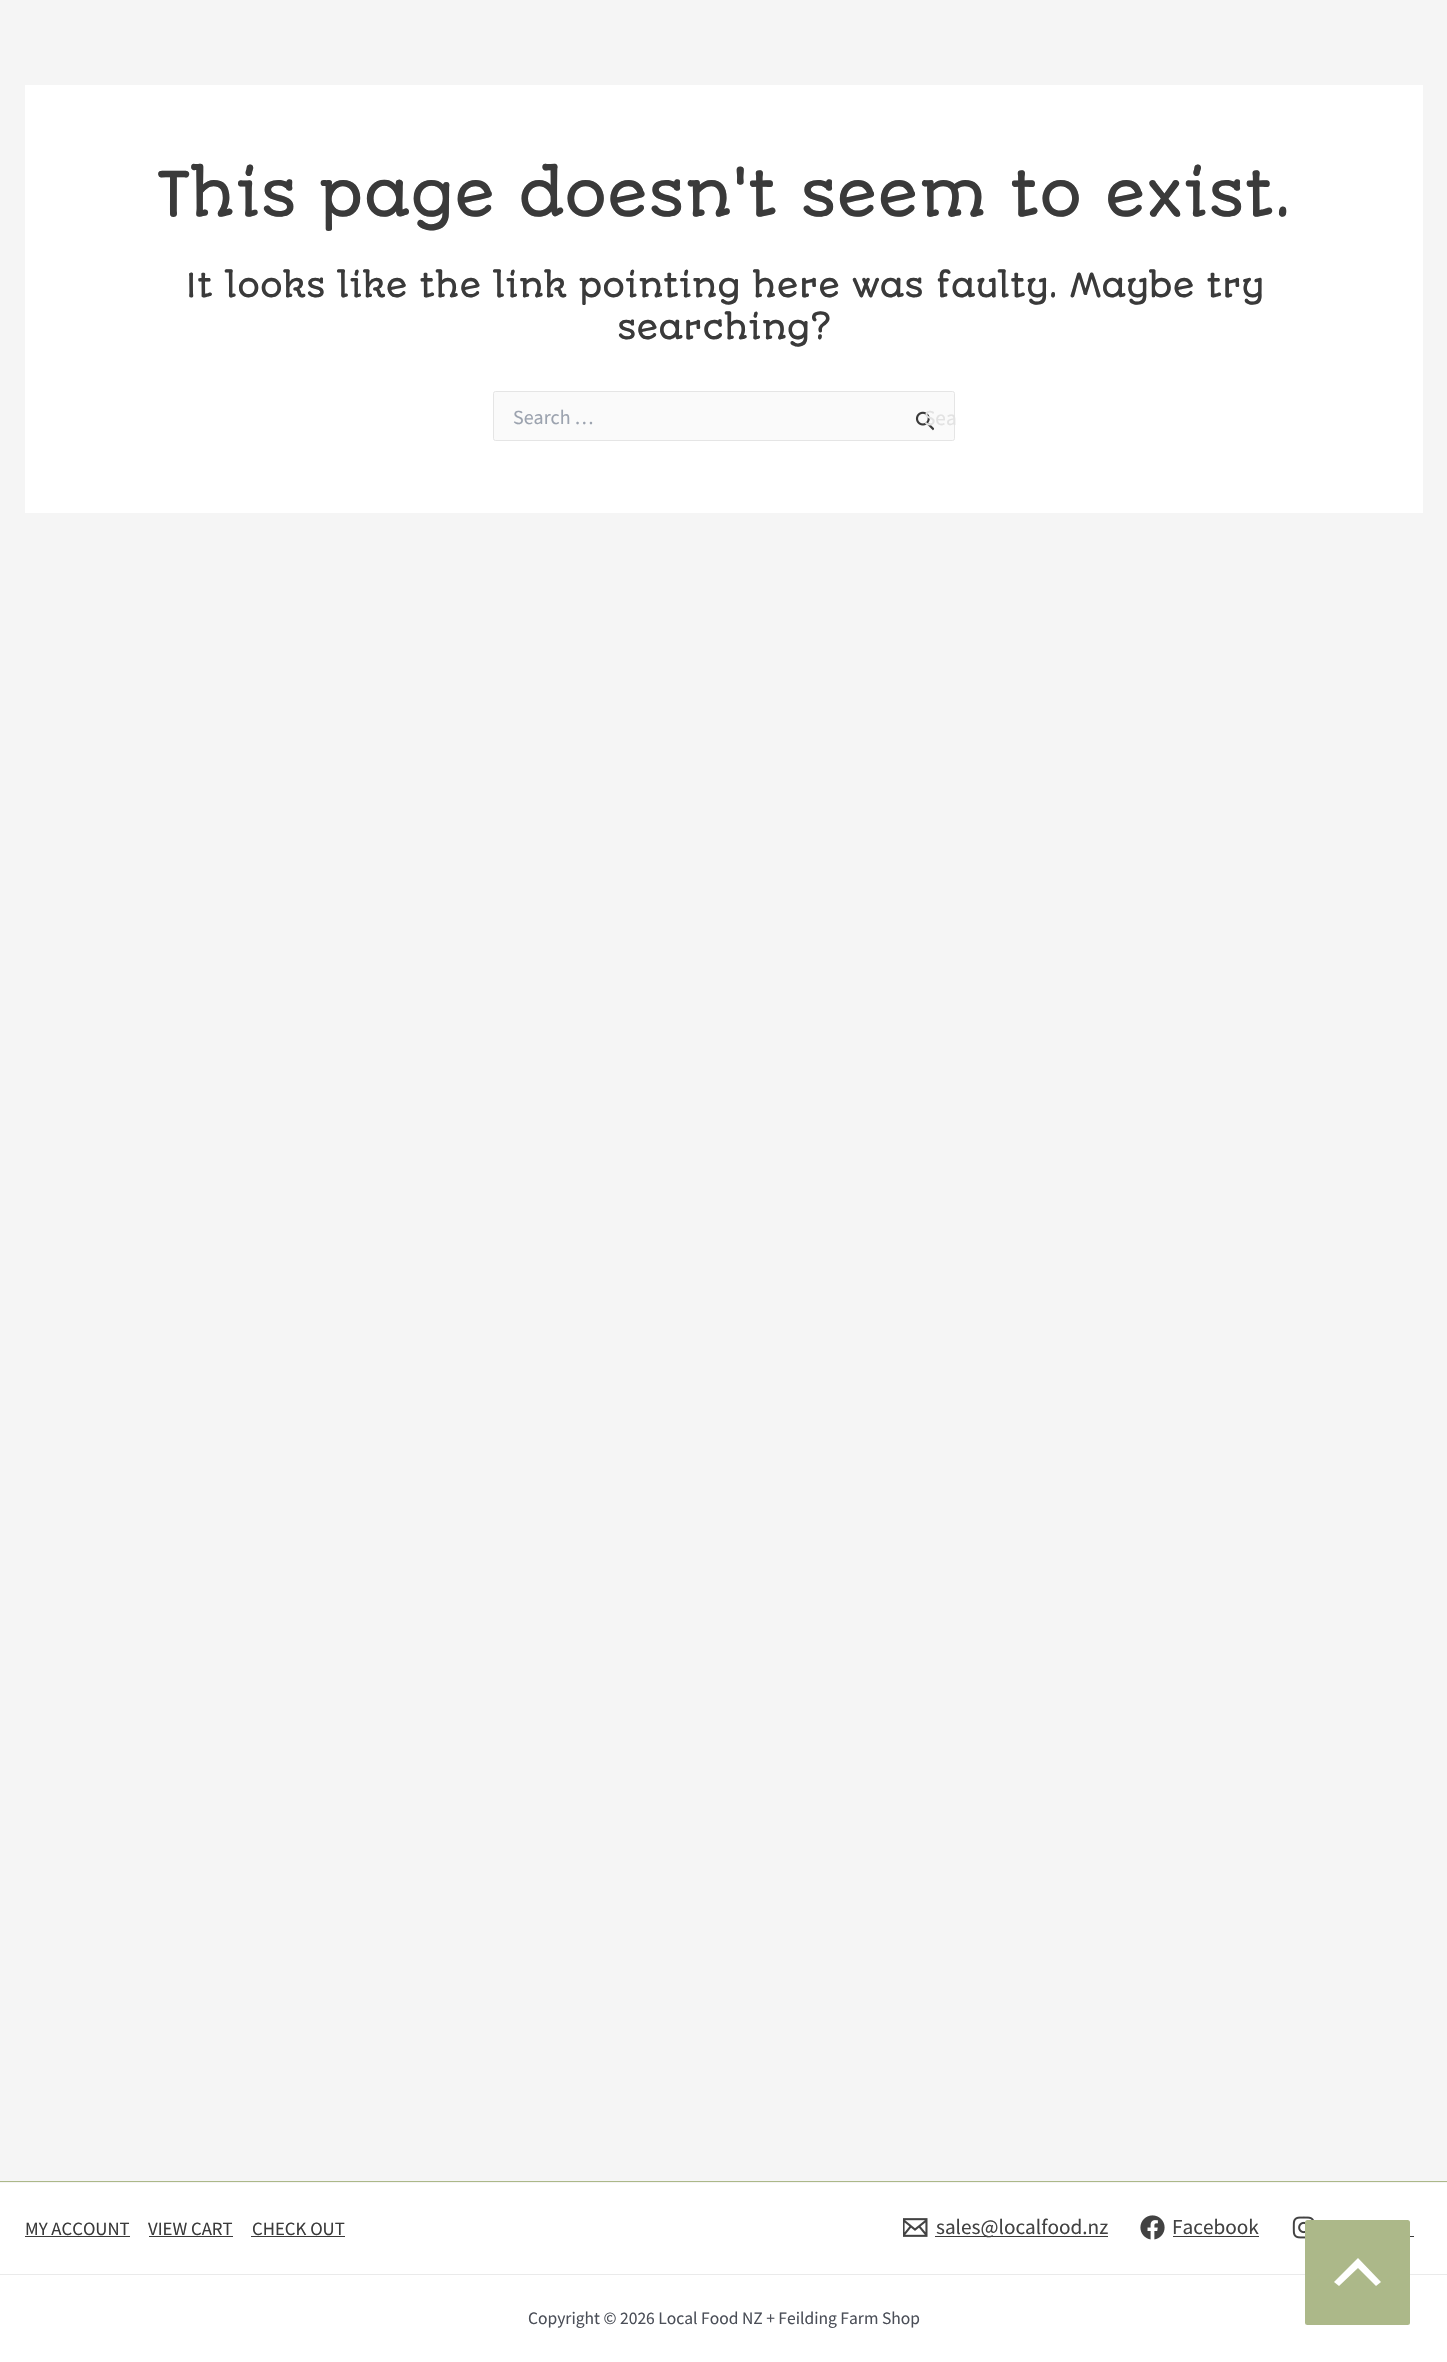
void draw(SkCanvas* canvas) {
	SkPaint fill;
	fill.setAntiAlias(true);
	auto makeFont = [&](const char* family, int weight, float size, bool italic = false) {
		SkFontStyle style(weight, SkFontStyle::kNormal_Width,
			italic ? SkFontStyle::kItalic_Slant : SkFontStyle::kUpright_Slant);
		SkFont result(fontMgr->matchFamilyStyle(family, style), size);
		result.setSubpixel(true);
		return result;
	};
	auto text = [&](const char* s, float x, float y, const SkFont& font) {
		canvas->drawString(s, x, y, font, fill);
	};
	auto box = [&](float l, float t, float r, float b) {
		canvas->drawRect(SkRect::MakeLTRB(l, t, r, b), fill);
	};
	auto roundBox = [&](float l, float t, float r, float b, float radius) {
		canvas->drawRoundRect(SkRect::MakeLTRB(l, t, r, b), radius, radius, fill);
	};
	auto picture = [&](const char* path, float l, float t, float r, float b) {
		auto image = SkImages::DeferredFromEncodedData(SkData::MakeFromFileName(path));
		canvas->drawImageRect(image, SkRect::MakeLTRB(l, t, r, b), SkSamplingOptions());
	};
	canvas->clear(0xFFF5F5F5);
	fill.setColor(0xFFFFFFFF);
	box(25, 85, 1423, 513);
	fill.setColor(0xFFFAFAFA);
	canvas->drawRoundRect(SkRect::MakeLTRB(493.5f, 391.5f, 954.5f, 440.5f), 2, 2, fill);
	fill.setStyle(SkPaint::kStroke_Style);
	fill.setStrokeWidth(1);
	fill.setColor(0xFFE5E5E5);
	canvas->drawRoundRect(SkRect::MakeLTRB(493.5f, 391.5f, 954.5f, 440.5f), 2, 2, fill);
	picture("image0.png", 915, 411, 934, 431);
	fill.setStyle(SkPaint::kFill_Style);
	fill.setColor(0xFFFFFFFF);
	box(0, 2183, 1447, 2274);
	fill.setColor(0xFFACB889);
	box(0, 2181, 1447, 2182);
	fill.setColor(0xFF3A3A3A);
	box(25, 2236, 130, 2237);
	box(149, 2236, 233, 2237);
	box(251, 2236, 345, 2237);
	picture("image1.png", 903, 2218, 928, 2237);
	box(935, 2236, 1108, 2237);
	picture("image2.png", 1140, 2215, 1165, 2240);
	box(1173, 2236, 1259, 2237);
	picture("image3.png", 1292, 2216, 1314, 2239);
	box(1410, 2236, 1414, 2237);
	fill.setColor(0xFFFFFFFF);
	box(0, 2275, 1447, 2362);
	fill.setColor(0xFFEAEAEA);
	box(0, 2274, 1447, 2275);
	fill.setColor(0xFFACB889);
	roundBox(1305, 2220, 1410, 2325, 2.5f);
	fill.setColor(0xFFFFFFFF);
	canvas->drawPath(SkPathBuilder().moveTo(1381, 2282).lineTo(1358, 2258).lineTo(1334, 2282).lineTo(1339, 2286).lineTo(1358, 2268).lineTo(1376, 2286).close().detach(), fill);
	auto font1 = makeFont("Autour One", 400, 60);
	fill.setColor(0xFF3A3A3A);
	text("This page doesn't seem to exist.", 157, 216, font1);
	auto font2 = makeFont("Autour One", 400, 31.9f);
	text("It looks like the link pointing here was faulty. Maybe try", 185, 297, font2);
	text("searching?", 617, 339, font2);
	auto font3 = makeFont("Source Sans Pro", 400, 20);
	fill.setColor(0xFF9CA3AF);
	text("Search …", 513, 424, font3);
	auto font4 = makeFont("Source Sans Pro", 400, 21.25f);
	fill.setColor(0xFFE2E2E2);
	text("Sea", 924, 425, font4);
	auto font5 = makeFont("Source Sans Pro", 400, 18.75f);
	fill.setColor(0xFF3A3A3A);
	text("MY ACCOUNT", 25, 2235, font5);
	text("VIEW CART", 148, 2235, font5);
	text("CHECK OUT", 252, 2235, font5);
	fill.setColor(0xFF424242);
	text("sales@localfood.nz", 936, 2234, font4);
	text("Facebook", 1172, 2234, font4);
	auto font6 = makeFont("Source Sans Pro", 400, 17.5f);
	fill.setColor(0xFF4B4F58);
	text("Copyright © 2026 Local Food NZ + Feilding Farm Shop", 528, 2324, font6);
}
